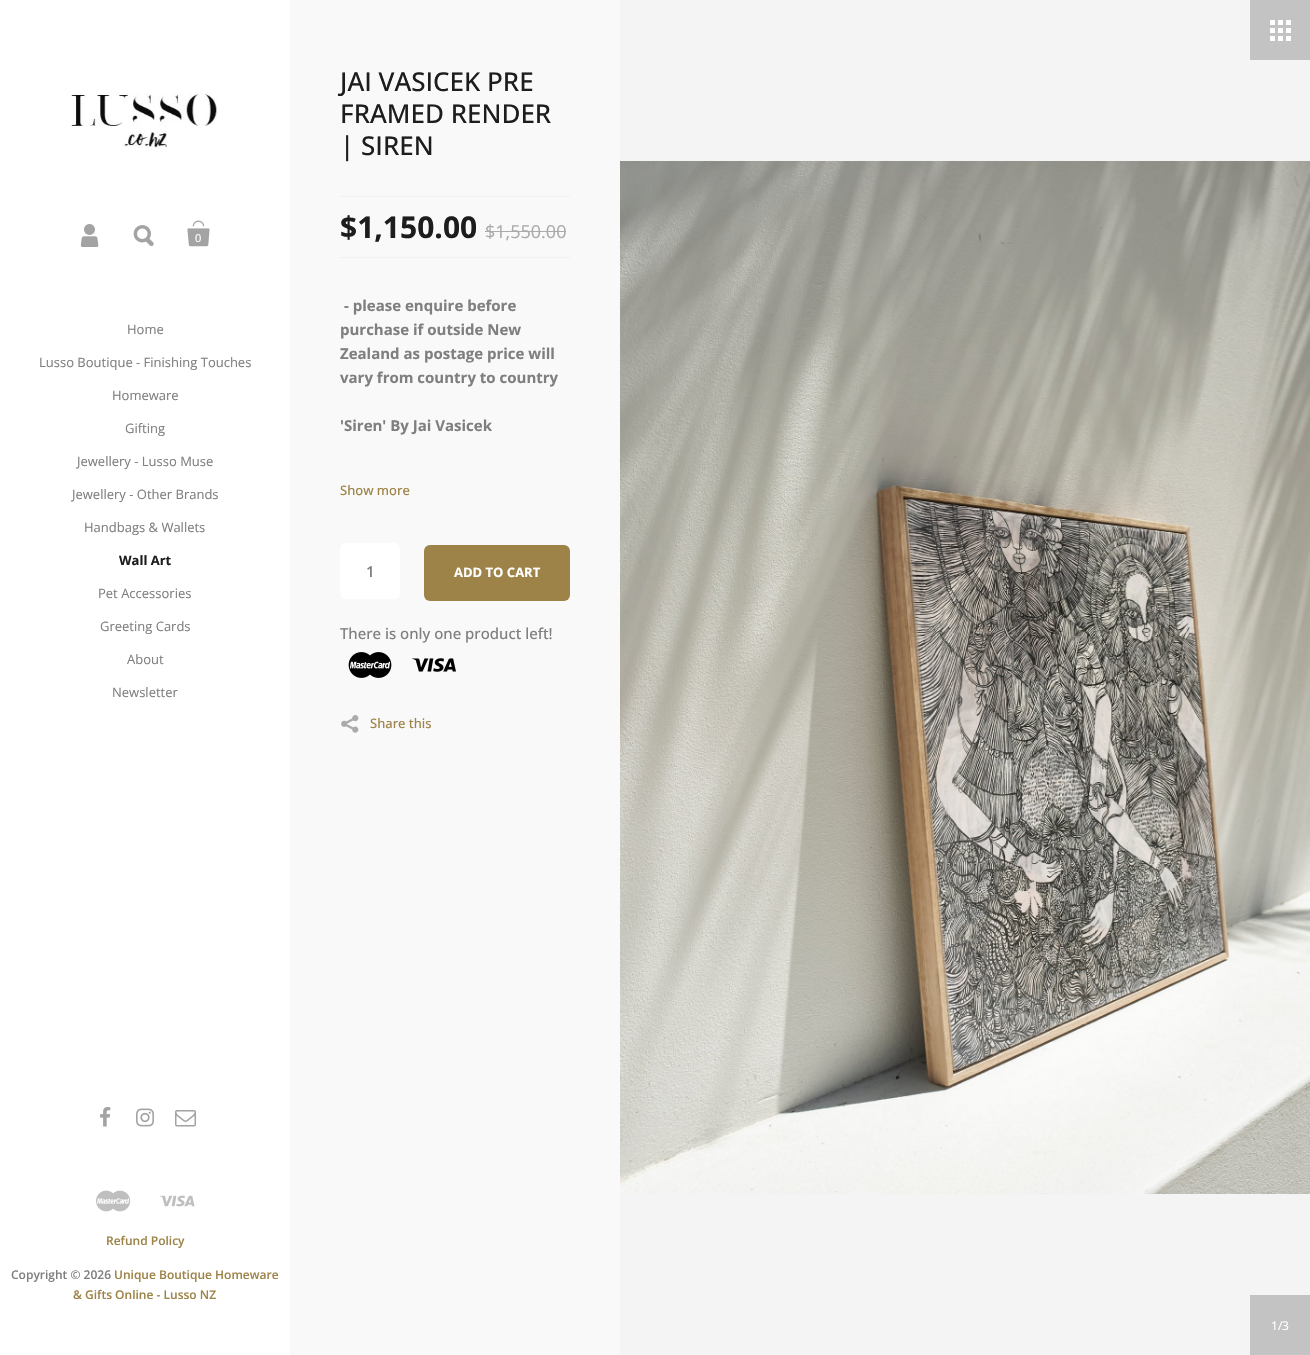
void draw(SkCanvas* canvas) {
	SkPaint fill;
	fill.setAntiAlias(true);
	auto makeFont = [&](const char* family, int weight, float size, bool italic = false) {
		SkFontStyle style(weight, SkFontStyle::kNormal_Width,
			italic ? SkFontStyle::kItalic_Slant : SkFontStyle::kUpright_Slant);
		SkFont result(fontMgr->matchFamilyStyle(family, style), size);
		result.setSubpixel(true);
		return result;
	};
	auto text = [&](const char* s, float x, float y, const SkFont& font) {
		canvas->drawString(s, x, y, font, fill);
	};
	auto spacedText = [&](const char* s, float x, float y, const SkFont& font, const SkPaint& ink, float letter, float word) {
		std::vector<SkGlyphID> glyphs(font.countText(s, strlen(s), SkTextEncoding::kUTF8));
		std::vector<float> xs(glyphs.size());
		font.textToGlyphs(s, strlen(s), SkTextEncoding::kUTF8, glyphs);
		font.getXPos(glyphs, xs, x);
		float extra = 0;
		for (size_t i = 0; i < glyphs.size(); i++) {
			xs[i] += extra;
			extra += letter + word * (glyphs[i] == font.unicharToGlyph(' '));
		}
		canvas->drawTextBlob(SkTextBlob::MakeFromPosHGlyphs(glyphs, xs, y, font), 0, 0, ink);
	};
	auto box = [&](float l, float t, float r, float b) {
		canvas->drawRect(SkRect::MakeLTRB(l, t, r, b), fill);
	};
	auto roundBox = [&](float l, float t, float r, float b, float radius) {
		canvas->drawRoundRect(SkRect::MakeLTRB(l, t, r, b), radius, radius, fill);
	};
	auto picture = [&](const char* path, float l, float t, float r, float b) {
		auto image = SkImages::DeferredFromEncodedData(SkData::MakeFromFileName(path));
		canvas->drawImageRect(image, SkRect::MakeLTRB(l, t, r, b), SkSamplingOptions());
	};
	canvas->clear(0xFFF9F9F9);
	fill.setColor(0xFFFFFFFF);
	box(0, 0, 290, 1355);
	picture("image0.png", 71, 93, 217, 148);
	picture("image1.png", 80, 224, 99, 247);
	picture("image2.png", 133, 225, 154, 247);
	picture("image3.png", 187, 220, 210, 247);
	picture("image4.png", 100, 1107, 111, 1127);
	picture("image5.png", 136, 1108, 154, 1127);
	picture("image6.png", 175, 1110, 196, 1127);
	picture("image7.png", 96, 1190, 131, 1212);
	picture("image8.png", 159, 1195, 195, 1207);
	fill.setColor(0xFFF4F4F4);
	box(620, 0, 1310, 1355);
	fill.setColor(0xFFC3C3C3);
	box(1250, 0, 1310, 60);
	picture("image9.png", 1270, 20, 1291, 41);
	fill.setColor(0xFFF1F1F1);
	box(340, 196, 570, 197);
	box(340, 257, 570, 258);
	fill.setColor(0xFFABABAB);
	box(485, 231, 566, 232);
	fill.setColor(0xFFFFFFFF);
	roundBox(340, 543, 400, 599, 6);
	fill.setColor(0xFF9D8347);
	roundBox(424, 545, 570, 601, 6);
	picture("image10.png", 348, 652, 392, 678);
	picture("image11.png", 412, 658, 456, 672);
	picture("image12.png", 341, 715, 359, 733);
	picture("image13.png", 620, 161, 1310, 1194);
	fill.setColor(0xFFC3C3C3);
	box(1250, 1295, 1310, 1355);
	auto font1 = makeFont("Open Sans", 400, 11);
	fill.setColor(0xFFFFFFFF);
	text("0", 195, 242, font1);
	auto font2 = makeFont("Open Sans", 400, 13);
	fill.setColor(0xFF7F7F7F);
	text("Home", 127, 334, font2);
	text("Lusso Boutique - Finishing Touches", 39, 367, font2);
	text("Homeware", 112, 400, font2);
	text("Gifting", 125, 433, font2);
	text("Jewellery - Lusso Muse", 77, 466, font2);
	text("Jewellery - Other Brands", 72, 499, font2);
	text("Handbags & Wallets", 84, 532, font2);
	auto font3 = makeFont("Open Sans", 700, 13);
	fill.setColor(0xFF1D1D1D);
	text("Wall Art", 119, 565, font3);
	fill.setColor(0xFF7F7F7F);
	text("Pet Accessories", 98, 598, font2);
	text("Greeting Cards", 100, 631, font2);
	text("About", 127, 664, font2);
	text("Newsletter", 112, 697, font2);
	auto font4 = makeFont("Open Sans", 600, 12);
	fill.setColor(0xFF9D8347);
	text("Refund Policy", 106, 1245, font4);
	fill.setColor(0xFF7F7F7F);
	text("Copyright © 2026", 11, 1279, font4);
	fill.setColor(0xFF9D8347);
	text("Unique Boutique Homeware", 114, 1279, font4);
	text("& Gifts Online - Lusso NZ", 73, 1299, font4);
	auto font5 = makeFont("Open Sans", 500, 26);
	fill.setColor(0xFF1D1D1D);
	text("JAI VASICEK PRE", 340, 91, font5);
	text("FRAMED RENDER", 340, 123, font5);
	text("| SIREN", 340, 155, font5);
	auto font6 = makeFont("Open Sans", 700, 30);
	text("$1,150.00", 340, 238, font6);
	auto font7 = makeFont("Open Sans", 400, 18);
	fill.setColor(0xFFABABAB);
	text("$1,550.00", 485, 238, font7);
	auto font8 = makeFont("Open Sans", 700, 15);
	fill.setColor(0xFF7F7F7F);
	text("- please enquire before", 344, 311, font8);
	text("purchase if outside New", 340, 335, font8);
	text("Zealand as postage price will", 340, 359, font8);
	text("vary from country to country", 340, 383, font8);
	text("'Siren' By Jai Vasicek", 340, 431, font8);
	auto font9 = makeFont("Open Sans", 500, 13);
	fill.setColor(0xFF9D8347);
	text("Show more", 340, 495, font9);
	auto font10 = makeFont("Open Sans", 600, 15);
	fill.setColor(0xFF7F7F7F);
	text("1", 366, 577, font10);
	fill.setColor(0xFFFFFFFF);
	text("ADD TO CART", 454, 577, font3);
	auto font11 = makeFont("Open Sans", 500, 15);
	fill.setColor(0xFF7F7F7F);
	text("There is only one product left!", 340, 639, font11);
	fill.setColor(0xFF9D8347);
	text("Share this", 370, 728, font9);
	auto font12 = makeFont("Open Sans", 400, 12);
	fill.setColor(0xFFFFFFFF);
	text("1", 1271, 1330, font12);
	spacedText("/", 1278, 1330, font12, fill, -2, 0);
	text("3", 1282, 1330, font12);
}
